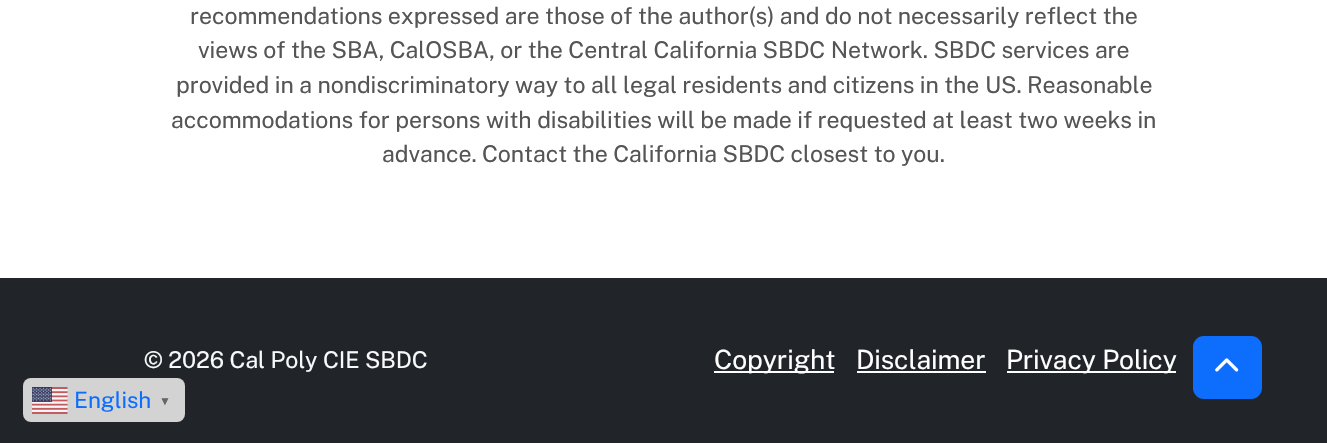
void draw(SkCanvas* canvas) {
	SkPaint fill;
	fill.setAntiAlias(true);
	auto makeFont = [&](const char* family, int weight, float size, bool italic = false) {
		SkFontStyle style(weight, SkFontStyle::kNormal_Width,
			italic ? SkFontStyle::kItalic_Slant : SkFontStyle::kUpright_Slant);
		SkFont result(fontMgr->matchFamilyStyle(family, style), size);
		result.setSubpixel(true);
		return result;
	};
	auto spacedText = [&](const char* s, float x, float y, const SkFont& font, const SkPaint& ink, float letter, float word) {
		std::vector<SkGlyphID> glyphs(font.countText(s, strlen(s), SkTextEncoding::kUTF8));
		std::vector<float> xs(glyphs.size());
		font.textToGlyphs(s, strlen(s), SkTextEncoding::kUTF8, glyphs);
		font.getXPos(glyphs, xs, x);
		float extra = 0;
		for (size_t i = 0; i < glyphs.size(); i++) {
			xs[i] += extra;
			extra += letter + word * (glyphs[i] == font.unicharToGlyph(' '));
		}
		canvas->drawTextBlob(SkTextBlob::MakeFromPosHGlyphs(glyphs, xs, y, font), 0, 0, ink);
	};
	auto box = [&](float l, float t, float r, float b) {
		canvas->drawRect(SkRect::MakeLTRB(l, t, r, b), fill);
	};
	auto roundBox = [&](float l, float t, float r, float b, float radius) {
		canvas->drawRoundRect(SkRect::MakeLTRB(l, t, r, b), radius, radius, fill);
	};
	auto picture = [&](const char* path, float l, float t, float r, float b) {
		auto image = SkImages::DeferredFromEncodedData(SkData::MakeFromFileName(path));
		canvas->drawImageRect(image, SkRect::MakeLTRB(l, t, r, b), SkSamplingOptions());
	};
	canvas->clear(0xFFFFFFFF);
	fill.setColor(0xFF212529);
	box(0, 278, 1327, 443);
	fill.setColor(0xFFFFFFFF);
	box(714, 371, 834, 373);
	box(857, 371, 986, 373);
	box(1007, 371, 1176, 373);
	fill.setColor(0xFF0D6EFD);
	canvas->drawRoundRect(SkRect::MakeLTRB(1194, 337, 1261, 398), 10, 10, fill);
	fill.setStyle(SkPaint::kStroke_Style);
	fill.setStrokeWidth(2);
	canvas->drawRoundRect(SkRect::MakeLTRB(1194, 337, 1261, 398), 10, 10, fill);
	picture("image0.png", 1215, 358, 1239, 372);
	fill.setStyle(SkPaint::kFill_Style);
	fill.setColor(0xFFD3D3D4);
	roundBox(23, 378, 185, 422, 8);
	picture("image1.png", 32, 387, 68, 414);
	auto font1 = makeFont("Public Sans", 400, 23.1f);
	fill.setColor(0xFF555555);
	spacedText("recommendations expressed are those of the author(s) and do not necessarily reflect the", 190, 24, font1, fill, -0.08f, 0);
	spacedText("views of the SBA, CalOSBA, or the Central California SBDC Network. SBDC services are", 198, 58, font1, fill, -0.08f, 0);
	spacedText("provided in a nondiscriminatory way to all legal residents and citizens in the US. Reasonable", 176, 93, font1, fill, -0.08f, 0);
	spacedText("accommodations for persons with disabilities will be made if requested at least two weeks in", 171, 128, font1, fill, -0.08f, 0);
	spacedText("advance. Contact the California SBDC closest to you.", 382, 162, font1, fill, -0.08f, 0);
	fill.setColor(0xFFF8F9FA);
	spacedText("© 2026 Cal Poly CIE SBDC", 144, 368, font1, fill, -0.08f, 0);
	auto font2 = makeFont("Public Sans", 400, 26.5f);
	fill.setColor(0xFFFFFFFF);
	spacedText("Copyright", 714, 369, font2, fill, -0.08f, 0);
	spacedText("Disclaimer", 856, 369, font2, fill, -0.08f, 0);
	spacedText("Privacy Policy", 1006, 369, font2, fill, -0.08f, 0);
	auto font3 = makeFont("Public Sans", 400, 22.5f);
	fill.setColor(0xFF0D6EFD);
	spacedText("English", 74, 408, font3, fill, -0.08f, 0);
	auto font4 = makeFont("Liberation Sans", 700, 12);
	fill.setColor(0xFF666666);
	spacedText("▼", 159, 405, font4, fill, -0.08f, 0);
}
